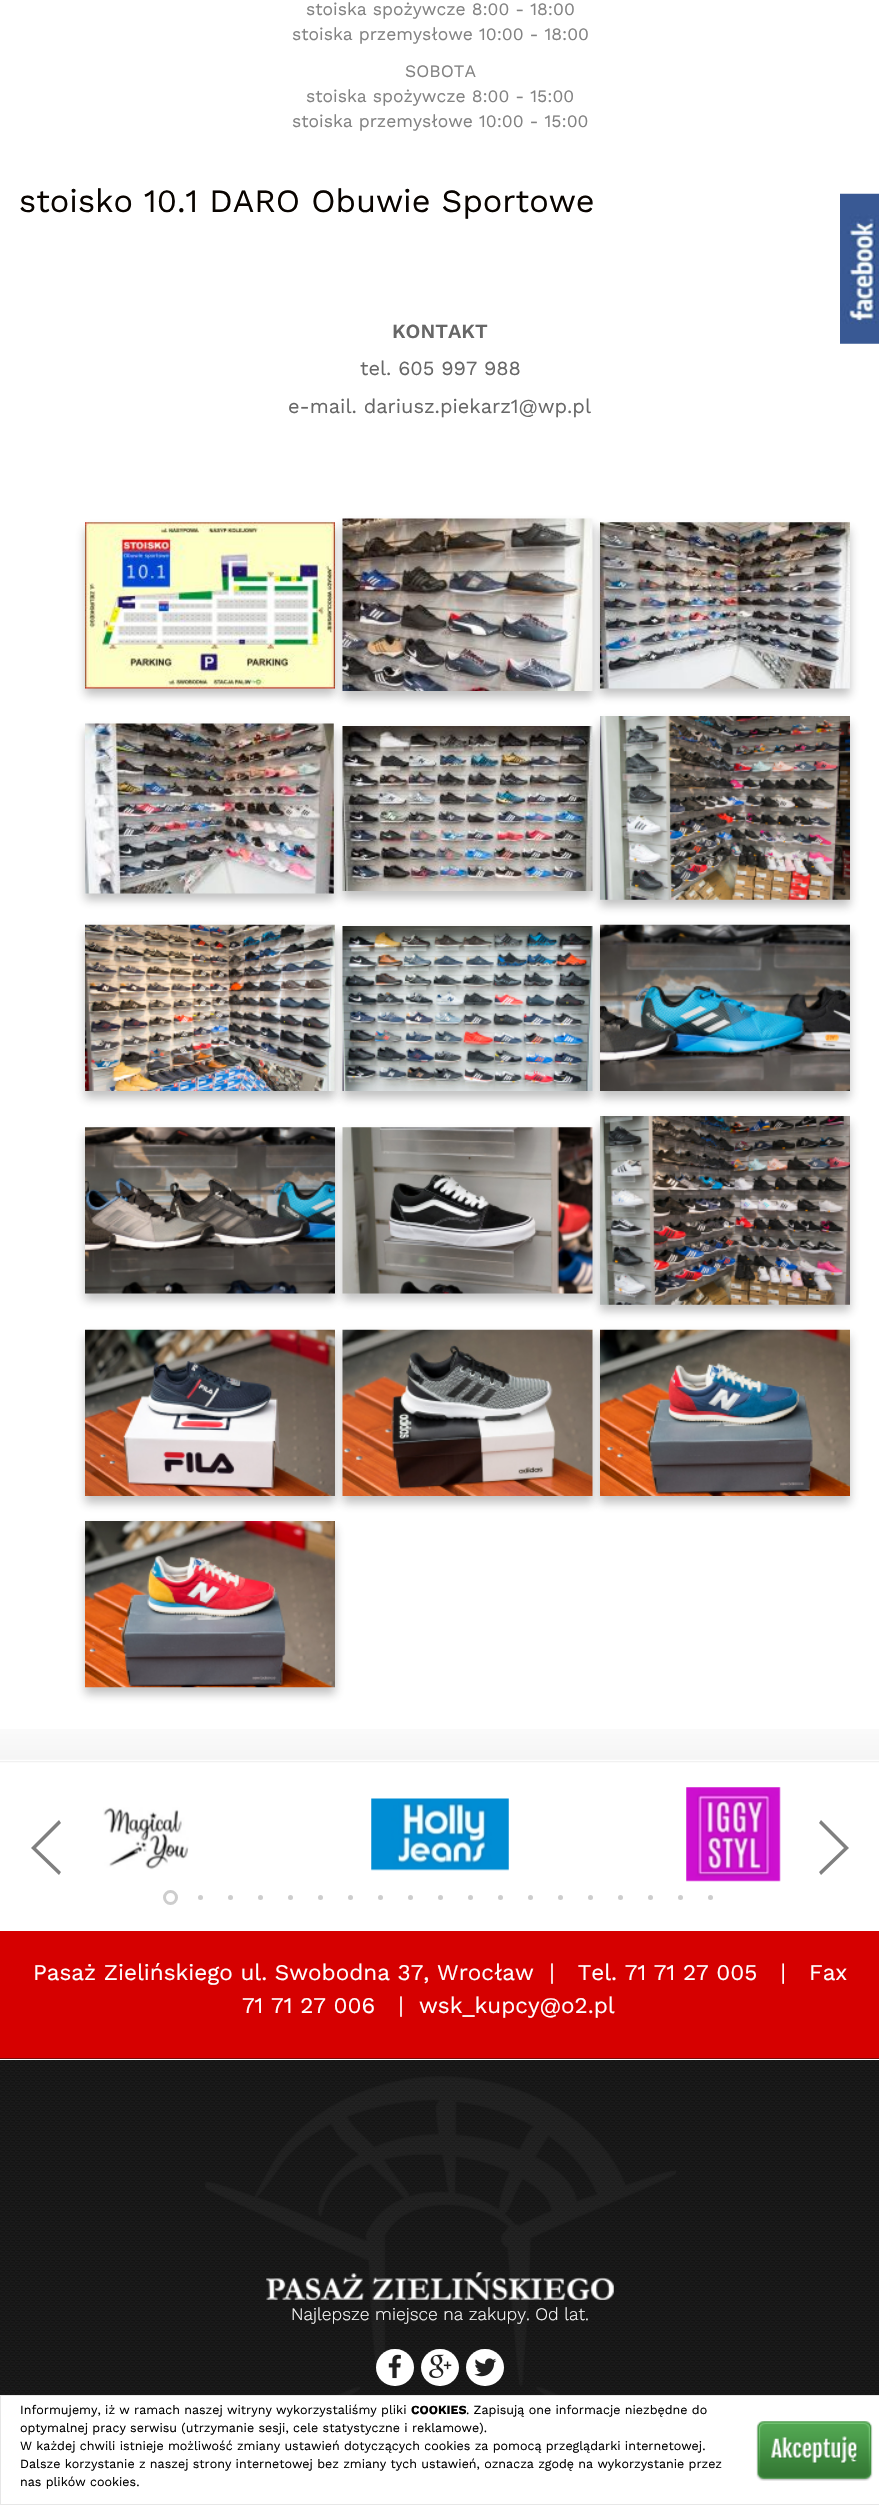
void draw(SkCanvas* canvas) {
	SkPaint fill;
	fill.setAntiAlias(true);
	auto makeFont = [&](const char* family, int weight, float size, bool italic = false) {
		SkFontStyle style(weight, SkFontStyle::kNormal_Width,
			italic ? SkFontStyle::kItalic_Slant : SkFontStyle::kUpright_Slant);
		SkFont result(fontMgr->matchFamilyStyle(family, style), size);
		result.setSubpixel(true);
		return result;
	};
	auto text = [&](const char* s, float x, float y, const SkFont& font) {
		canvas->drawString(s, x, y, font, fill);
	};
	auto box = [&](float l, float t, float r, float b) {
		canvas->drawRect(SkRect::MakeLTRB(l, t, r, b), fill);
	};
	auto roundBox = [&](float l, float t, float r, float b, float radius) {
		canvas->drawRoundRect(SkRect::MakeLTRB(l, t, r, b), radius, radius, fill);
	};
	auto picture = [&](const char* path, float l, float t, float r, float b) {
		auto image = SkImages::DeferredFromEncodedData(SkData::MakeFromFileName(path));
		canvas->drawImageRect(image, SkRect::MakeLTRB(l, t, r, b), SkSamplingOptions());
	};
	canvas->clear(0xFFFFFFFF);
	picture("image0.png", 0, 1729, 879, 1763);
	fill.setColor(0x4D323232);
	fill.setMaskFilter(SkMaskFilter::MakeBlur(kNormal_SkBlurStyle, 4.5f));
	canvas->drawRect(SkRect::MakeLTRB(85, 529, 335, 695), fill);
	fill.setMaskFilter(nullptr);
	picture("image1.png", 85, 522, 335, 689);
	fill.setMaskFilter(SkMaskFilter::MakeBlur(kNormal_SkBlurStyle, 4.5f));
	canvas->drawRect(SkRect::MakeLTRB(343, 525, 593, 698), fill);
	fill.setMaskFilter(nullptr);
	picture("image2.png", 342, 518, 593, 691);
	fill.setMaskFilter(SkMaskFilter::MakeBlur(kNormal_SkBlurStyle, 4.5f));
	canvas->drawRect(SkRect::MakeLTRB(600, 529, 850, 695), fill);
	fill.setMaskFilter(nullptr);
	picture("image3.png", 600, 522, 850, 689);
	fill.setMaskFilter(SkMaskFilter::MakeBlur(kNormal_SkBlurStyle, 4.5f));
	canvas->drawRect(SkRect::MakeLTRB(85, 730, 334, 900), fill);
	fill.setMaskFilter(nullptr);
	picture("image4.png", 85, 723, 334, 894);
	fill.setMaskFilter(SkMaskFilter::MakeBlur(kNormal_SkBlurStyle, 4.5f));
	canvas->drawRect(SkRect::MakeLTRB(343, 733, 593, 898), fill);
	fill.setMaskFilter(nullptr);
	picture("image5.png", 342, 726, 593, 891);
	fill.setMaskFilter(SkMaskFilter::MakeBlur(kNormal_SkBlurStyle, 4.5f));
	canvas->drawRect(SkRect::MakeLTRB(600, 723, 850, 906), fill);
	fill.setMaskFilter(nullptr);
	picture("image6.png", 600, 716, 850, 900);
	fill.setMaskFilter(SkMaskFilter::MakeBlur(kNormal_SkBlurStyle, 4.5f));
	canvas->drawRect(SkRect::MakeLTRB(85, 931, 335, 1098), fill);
	fill.setMaskFilter(nullptr);
	picture("image7.png", 85, 924, 335, 1091);
	fill.setMaskFilter(SkMaskFilter::MakeBlur(kNormal_SkBlurStyle, 4.5f));
	canvas->drawRect(SkRect::MakeLTRB(343, 933, 593, 1098), fill);
	fill.setMaskFilter(nullptr);
	picture("image8.png", 342, 926, 593, 1091);
	fill.setMaskFilter(SkMaskFilter::MakeBlur(kNormal_SkBlurStyle, 4.5f));
	canvas->drawRect(SkRect::MakeLTRB(600, 931, 850, 1098), fill);
	fill.setMaskFilter(nullptr);
	picture("image9.png", 600, 924, 850, 1091);
	fill.setMaskFilter(SkMaskFilter::MakeBlur(kNormal_SkBlurStyle, 4.5f));
	canvas->drawRect(SkRect::MakeLTRB(85, 1134, 335, 1300), fill);
	fill.setMaskFilter(nullptr);
	picture("image10.png", 85, 1127, 335, 1294);
	fill.setMaskFilter(SkMaskFilter::MakeBlur(kNormal_SkBlurStyle, 4.5f));
	canvas->drawRect(SkRect::MakeLTRB(343, 1134, 593, 1300), fill);
	fill.setMaskFilter(nullptr);
	picture("image11.png", 342, 1127, 593, 1294);
	fill.setMaskFilter(SkMaskFilter::MakeBlur(kNormal_SkBlurStyle, 4.5f));
	canvas->drawRect(SkRect::MakeLTRB(600, 1123, 850, 1311), fill);
	fill.setMaskFilter(nullptr);
	picture("image12.png", 600, 1116, 850, 1305);
	fill.setMaskFilter(SkMaskFilter::MakeBlur(kNormal_SkBlurStyle, 4.5f));
	canvas->drawRect(SkRect::MakeLTRB(85, 1336, 335, 1503), fill);
	fill.setMaskFilter(nullptr);
	picture("image13.png", 85, 1329, 335, 1496);
	fill.setMaskFilter(SkMaskFilter::MakeBlur(kNormal_SkBlurStyle, 4.5f));
	canvas->drawRect(SkRect::MakeLTRB(343, 1336, 593, 1503), fill);
	fill.setMaskFilter(nullptr);
	picture("image14.png", 342, 1329, 593, 1496);
	fill.setMaskFilter(SkMaskFilter::MakeBlur(kNormal_SkBlurStyle, 4.5f));
	canvas->drawRect(SkRect::MakeLTRB(600, 1336, 850, 1503), fill);
	fill.setMaskFilter(nullptr);
	picture("image15.png", 600, 1329, 850, 1496);
	fill.setMaskFilter(SkMaskFilter::MakeBlur(kNormal_SkBlurStyle, 4.5f));
	canvas->drawRect(SkRect::MakeLTRB(85, 1528, 335, 1694), fill);
	fill.setMaskFilter(nullptr);
	picture("image16.png", 85, 1521, 335, 1688);
	picture("image17.png", 840, 193, 879, 344);
	fill.setColor(0xFF808080);
	canvas->drawPath(SkPathBuilder().moveTo(31, 1848).lineTo(59, 1820).lineTo(61, 1823).lineTo(36, 1848).lineTo(61, 1872).lineTo(59, 1875).close().detach(), fill);
	picture("image18.png", 103, 1807, 189, 1870);
	picture("image19.png", 371, 1798, 509, 1871);
	picture("image20.png", 686, 1787, 781, 1882);
	canvas->drawPath(SkPathBuilder().moveTo(849, 1848).lineTo(821, 1875).lineTo(819, 1872).lineTo(844, 1848).lineTo(819, 1823).lineTo(821, 1820).close().detach(), fill);
	fill.setStyle(SkPaint::kStroke_Style);
	fill.setStrokeWidth(3);
	fill.setColor(0xFFCDCDCD);
	canvas->drawCircle(170.5f, 1897.5f, 6, fill);
	fill.setStyle(SkPaint::kFill_Style);
	canvas->drawCircle(200.5f, 1897.5f, 2.5f, fill);
	canvas->drawCircle(230.5f, 1897.5f, 2.5f, fill);
	canvas->drawCircle(260.5f, 1897.5f, 2.5f, fill);
	canvas->drawCircle(290.5f, 1897.5f, 2.5f, fill);
	canvas->drawCircle(320.5f, 1897.5f, 2.5f, fill);
	canvas->drawCircle(350.5f, 1897.5f, 2.5f, fill);
	canvas->drawCircle(380.5f, 1897.5f, 2.5f, fill);
	canvas->drawCircle(410.5f, 1897.5f, 2.5f, fill);
	canvas->drawCircle(440.5f, 1897.5f, 2.5f, fill);
	canvas->drawCircle(470.5f, 1897.5f, 2.5f, fill);
	canvas->drawCircle(500.5f, 1897.5f, 2.5f, fill);
	canvas->drawCircle(530.5f, 1897.5f, 2.5f, fill);
	canvas->drawCircle(560.5f, 1897.5f, 2.5f, fill);
	canvas->drawCircle(590.5f, 1897.5f, 2.5f, fill);
	canvas->drawCircle(620.5f, 1897.5f, 2.5f, fill);
	canvas->drawCircle(650.5f, 1897.5f, 2.5f, fill);
	canvas->drawCircle(680.5f, 1897.5f, 2.5f, fill);
	canvas->drawCircle(710.5f, 1897.5f, 2.5f, fill);
	fill.setColor(0xFFD60000);
	box(0, 1931, 879, 2059);
	picture("image21.png", 0, 2058, 879, 2395);
	fill.setColor(0xFFFFFFFF);
	box(0, 2059, 879, 2060);
	picture("image22.png", 205, 2076, 676, 2395);
	picture("image23.png", 266, 2272, 614, 2300);
	roundBox(376, 2349, 414, 2386, 18.5f);
	picture("image24.png", 388, 2354, 401, 2379);
	roundBox(421, 2349, 459, 2386, 18.5f);
	picture("image25.png", 429, 2354, 452, 2378);
	roundBox(466, 2349, 504, 2386, 18.5f);
	picture("image26.png", 474, 2358, 497, 2377);
	fill.setStyle(SkPaint::kStroke_Style);
	fill.setStrokeWidth(1);
	fill.setColor(0xFFE7E7E7);
	canvas->drawRect(SkRect::MakeLTRB(0.5f, 2395.5f, 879.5f, 2504.5f), fill);
	picture("image27.png", 756, 2421, 873, 2481);
	auto font1 = makeFont("Work Sans", 400, 17.5f);
	fill.setStyle(SkPaint::kFill_Style);
	fill.setColor(0xFF838383);
	text("stoiska spożywcze 8:00 - 18:00", 306, 15, font1);
	text("stoiska przemysłowe 10:00 - 18:00", 292, 40, font1);
	text("SOBOTA", 405, 77, font1);
	text("stoiska spożywcze 8:00 - 15:00", 306, 102, font1);
	text("stoiska przemysłowe 10:00 - 15:00", 292, 127, font1);
	auto font2 = makeFont("Work Sans", 400, 32.5f);
	fill.setColor(0xFF090400);
	text("stoisko 10.1 DARO Obuwie Sportowe", 19, 212, font2);
	auto font3 = makeFont("Work Sans", 600, 20);
	fill.setColor(0xFF676767);
	text("KONTAKT", 392, 338, font3);
	auto font4 = makeFont("Work Sans", 400, 20);
	text("tel. 605 997 988", 360, 375, font4);
	text("e-mail. dariusz.piekarz1@wp.pl", 288, 413, font4);
	auto font5 = makeFont("Work Sans", 400, 22.5f);
	fill.setColor(0xFFFFFFFF);
	text("Pasaż Zielińskiego ul. Swobodna 37, Wrocław  |   Tel. 71 71 27 005   |   Fax", 33, 1980, font5);
	text("71 71 27 006   |  wsk_kupcy@o2.pl", 242, 2013, font5);
	auto font6 = makeFont("Work Sans", 300, 17.5f);
	text("Najlepsze miejsce na zakupy. Od lat.", 291, 2320, font6);
	auto font7 = makeFont("Work Sans", 400, 12.5f);
	fill.setColor(0xFF000000);
	text("Informujemy, iż w ramach naszej witryny wykorzystaliśmy pliki", 20, 2414, font7);
	auto font8 = makeFont("Work Sans", 700, 12.5f);
	text("COOKIES", 411, 2414, font8);
	text(". Zapisują one informacje niezbędne do", 466, 2414, font7);
	text("optymalnej pracy serwisu (utrzymanie sesji, cele statystyczne i reklamowe).", 20, 2432, font7);
	text("W każdej chwili istnieje możliwość zmiany ustawień dotyczących cookies za pomocą przeglądarki internetowej.", 20, 2450, font7);
	text("Dalsze korzystanie z naszej strony internetowej bez zmiany tych ustawień, oznacza zgodę na wykorzystanie przez", 20, 2468, font7);
	text("nas plików cookies.", 20, 2486, font7);
}
